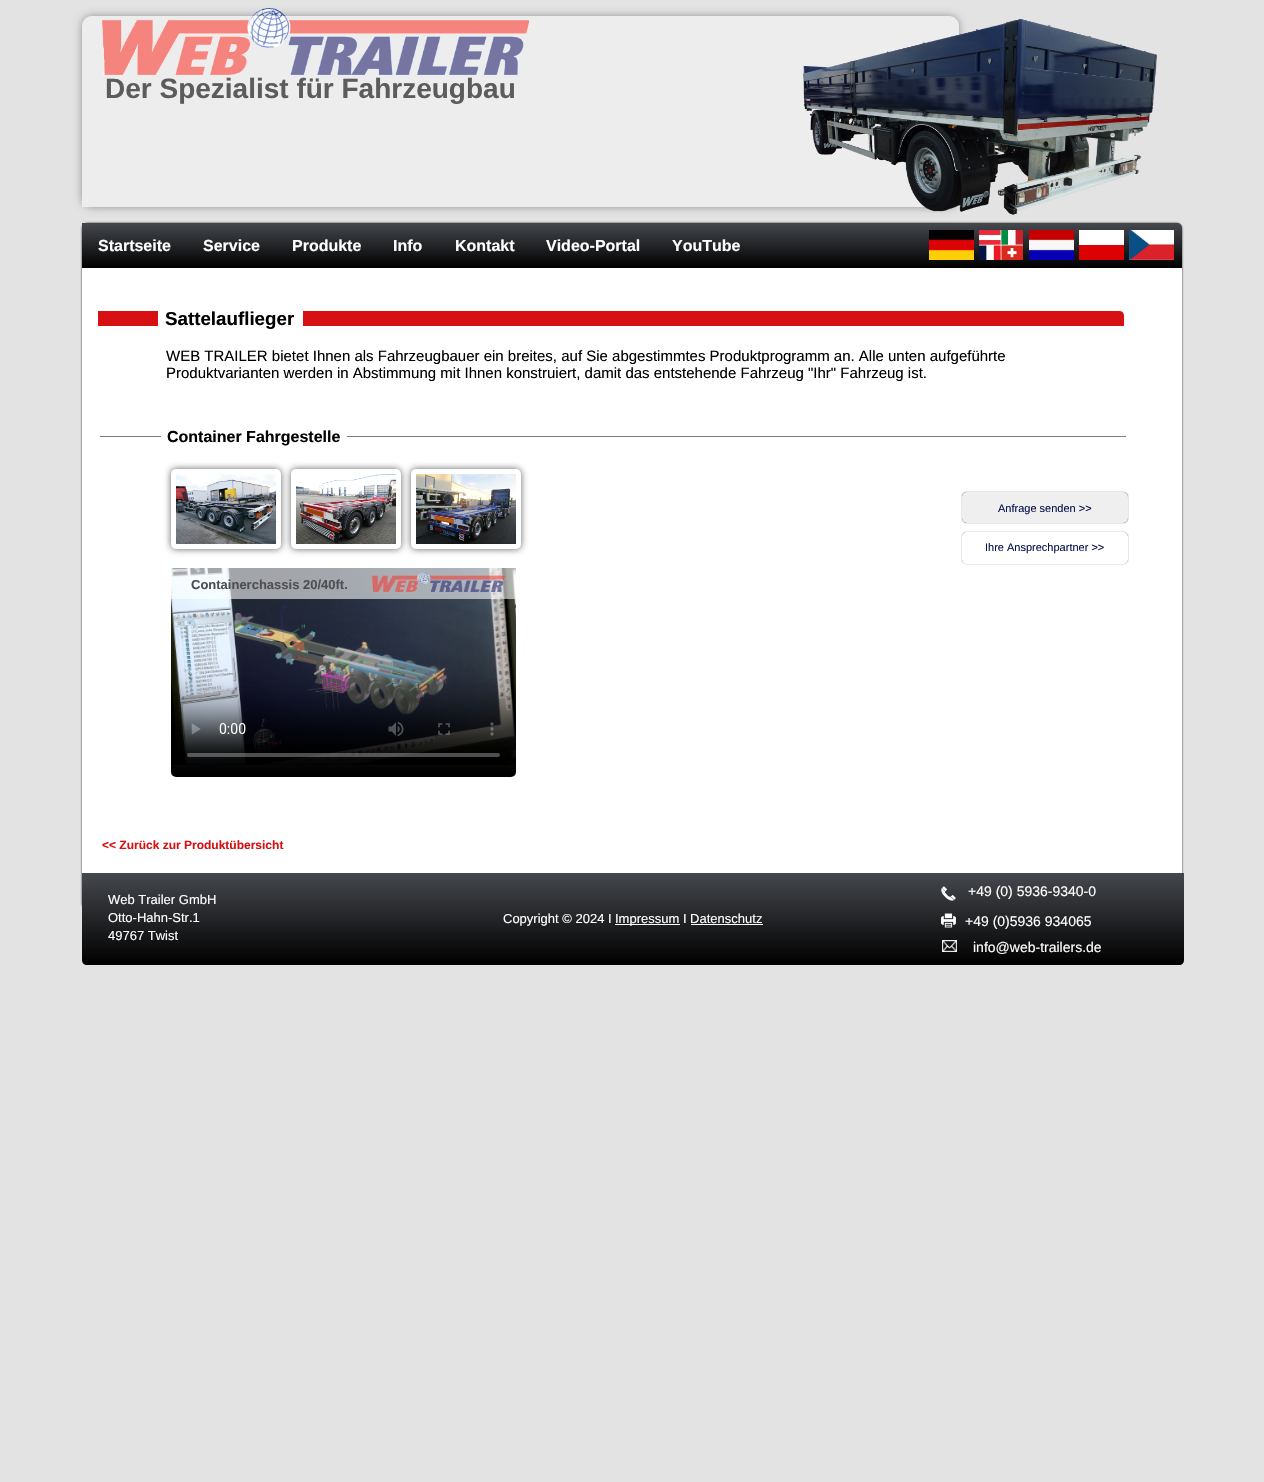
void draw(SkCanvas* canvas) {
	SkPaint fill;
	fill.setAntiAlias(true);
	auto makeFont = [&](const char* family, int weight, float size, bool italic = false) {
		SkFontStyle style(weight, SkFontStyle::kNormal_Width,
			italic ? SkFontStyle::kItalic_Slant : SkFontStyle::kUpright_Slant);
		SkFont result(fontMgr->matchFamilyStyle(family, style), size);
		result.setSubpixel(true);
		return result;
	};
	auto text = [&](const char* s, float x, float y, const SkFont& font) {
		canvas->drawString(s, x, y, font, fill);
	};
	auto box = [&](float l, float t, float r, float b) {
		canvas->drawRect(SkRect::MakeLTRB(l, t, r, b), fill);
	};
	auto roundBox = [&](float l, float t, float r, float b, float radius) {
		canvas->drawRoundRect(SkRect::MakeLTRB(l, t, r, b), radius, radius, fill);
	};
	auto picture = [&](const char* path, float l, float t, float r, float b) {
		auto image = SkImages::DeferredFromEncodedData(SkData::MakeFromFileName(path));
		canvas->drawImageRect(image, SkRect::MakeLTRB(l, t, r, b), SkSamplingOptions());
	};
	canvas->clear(0xFFE3E3E3);
	picture("image2.png", 102, 8, 529, 75);
	canvas->save();
	canvas->clipPath(SkPathBuilder(SkPathFillType::kEvenOdd).moveTo(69, 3).lineTo(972, 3).lineTo(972, 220).lineTo(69, 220).close().moveTo(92, 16).lineTo(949, 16).cubicTo(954.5f, 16, 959, 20.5f, 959, 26).lineTo(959, 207).lineTo(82, 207).lineTo(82, 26).cubicTo(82, 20.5f, 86.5f, 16, 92, 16).close().detach(), true);
	fill.setColor(0x5C000000);
	fill.setMaskFilter(SkMaskFilter::MakeBlur(kNormal_SkBlurStyle, 4));
	canvas->drawRoundRect(SkRect::MakeLTRB(82, 16, 959, 207), 10, 10, fill);
	fill.setMaskFilter(nullptr);
	canvas->restore();
	fill.setColor(0xFF000000);
	fill.setMaskFilter(SkMaskFilter::MakeBlur(kNormal_SkBlurStyle, 1));
	canvas->drawRoundRect(SkRect::MakeLTRB(82, 223, 1182, 909), 6, 6, fill);
	fill.setMaskFilter(nullptr);
	fill.setColor(0xFFFFFFFF);
	canvas->drawPath(SkPathBuilder().moveTo(88, 223).lineTo(1176, 223).cubicTo(1179.5f, 223, 1182, 225.5f, 1182, 229).lineTo(1182, 909).lineTo(82, 909).lineTo(82, 229).cubicTo(82, 225.5f, 84.5f, 223, 88, 223).close().detach(), fill);
	{
		const SkColor colors[] = {0xFF45484D, 0xFF000000};
		const float stops[] = {0, 1};
		const SkPoint ends[] = {{632, 223}, {632, 268}};
		fill.setShader(SkGradientShader::MakeLinear(ends, colors, stops, 2, SkTileMode::kClamp));
		fill.setAlpha(255);
	}
	canvas->drawPath(SkPathBuilder().moveTo(82, 223).lineTo(1177, 223).cubicTo(1180, 223, 1182, 225, 1182, 228).lineTo(1182, 268).lineTo(82, 268).close().detach(), fill);
	picture("image3.png", 929, 230, 974, 260);
	picture("image4.png", 979, 230, 1023, 260);
	picture("image5.png", 1029, 230, 1074, 260);
	picture("image6.png", 1079, 230, 1124, 260);
	picture("image7.png", 1129, 230, 1174, 260);
	fill.setShader(nullptr);
	fill.setColor(0xFFD71113);
	box(98, 311, 158, 326);
	canvas->drawPath(SkPathBuilder().moveTo(305.5f, 313.5f).lineTo(1119, 313.5f).cubicTo(1120.5f, 313.5f, 1121.5f, 314.5f, 1121.5f, 316).lineTo(1121.5f, 323.5f).lineTo(305.5f, 323.5f).close().detach(), fill);
	fill.setStyle(SkPaint::kStroke_Style);
	fill.setStrokeWidth(5);
	canvas->drawPath(SkPathBuilder().moveTo(305.5f, 313.5f).lineTo(1119, 313.5f).cubicTo(1120.5f, 313.5f, 1121.5f, 314.5f, 1121.5f, 316).lineTo(1121.5f, 323.5f).lineTo(305.5f, 323.5f).close().detach(), fill);
	fill.setStyle(SkPaint::kFill_Style);
	fill.setColor(0xFF7C7C7C);
	box(100, 436, 1126, 437);
	fill.setColor(0xFFFFFFFF);
	box(161, 436, 347, 437);
	fill.setColor(0xFF646464);
	fill.setMaskFilter(SkMaskFilter::MakeBlur(kNormal_SkBlurStyle, 3.5f));
	canvas->drawRoundRect(SkRect::MakeLTRB(171, 469, 281, 549), 5, 5, fill);
	fill.setMaskFilter(nullptr);
	fill.setColor(0xFFFFFFFF);
	roundBox(171, 469, 281, 549, 5);
	picture("image8.png", 176, 474, 276, 544);
	fill.setColor(0xFF646464);
	fill.setMaskFilter(SkMaskFilter::MakeBlur(kNormal_SkBlurStyle, 3.5f));
	canvas->drawRoundRect(SkRect::MakeLTRB(291, 469, 401, 549), 5, 5, fill);
	fill.setMaskFilter(nullptr);
	fill.setColor(0xFFFFFFFF);
	roundBox(291, 469, 401, 549, 5);
	picture("image9.png", 296, 474, 396, 544);
	fill.setColor(0xFF646464);
	fill.setMaskFilter(SkMaskFilter::MakeBlur(kNormal_SkBlurStyle, 3.5f));
	canvas->drawRoundRect(SkRect::MakeLTRB(411, 469, 521, 549), 5, 5, fill);
	fill.setMaskFilter(nullptr);
	fill.setColor(0xFFFFFFFF);
	roundBox(411, 469, 521, 549, 5);
	picture("image10.png", 416, 474, 516, 544);
	fill.setColor(0xFF07114D);
	fill.setMaskFilter(SkMaskFilter::MakeBlur(kNormal_SkBlurStyle, 0.5f));
	canvas->drawRoundRect(SkRect::MakeLTRB(962, 492, 1128, 523), 5, 5, fill);
	fill.setMaskFilter(nullptr);
	fill.setColor(0xFFEFEFEF);
	roundBox(962, 492, 1128, 523, 5);
	canvas->save();
	canvas->clipPath(SkPathBuilder(SkPathFillType::kEvenOdd).moveTo(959, 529).lineTo(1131, 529).lineTo(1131, 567).lineTo(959, 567).close().moveTo(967, 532).lineTo(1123, 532).cubicTo(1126, 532, 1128, 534, 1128, 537).lineTo(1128, 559).cubicTo(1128, 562, 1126, 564, 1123, 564).lineTo(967, 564).cubicTo(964, 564, 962, 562, 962, 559).lineTo(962, 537).cubicTo(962, 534, 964, 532, 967, 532).close().detach(), true);
	fill.setColor(0xFF1A0C55);
	fill.setMaskFilter(SkMaskFilter::MakeBlur(kNormal_SkBlurStyle, 0.5f));
	canvas->drawRoundRect(SkRect::MakeLTRB(962, 532, 1128, 564), 5, 5, fill);
	fill.setMaskFilter(nullptr);
	canvas->restore();
	picture("image11.png", 171, 568, 516, 777);
	fill.setColor(0x94FFFFFF);
	box(171, 568, 516, 599);
	picture("image12.png", 372, 572, 505, 592);
	{
		const SkColor colors[] = {0xFF45484D, 0xFF000000};
		const float stops[] = {0, 1};
		const SkPoint ends[] = {{633, 873}, {633, 965}};
		fill.setShader(SkGradientShader::MakeLinear(ends, colors, stops, 2, SkTileMode::kClamp));
		fill.setAlpha(255);
	}
	canvas->drawPath(SkPathBuilder().moveTo(82, 873).lineTo(1184, 873).lineTo(1184, 960).cubicTo(1184, 963, 1182, 965, 1179, 965).lineTo(87, 965).cubicTo(84, 965, 82, 963, 82, 960).close().detach(), fill);
	fill.setShader(nullptr);
	fill.setColor(0xFFFFFFFF);
	box(615, 924, 680, 925);
	picture("image13.png", 941, 886, 956, 901);
	picture("image14.png", 941, 913, 956, 928);
	picture("image15.png", 942, 940, 957, 952);
	box(691, 924, 763, 925);
	auto font1 = makeFont("Liberation Sans", 700, 28);
	fill.setColor(0xFF000000);
	text("Der Spezialist für Fahrzeugbau", 105, 98, font1);
	picture("image0.png", 82, 16, 959, 207);
	picture("image1.png", 803, 19, 1157, 215);
	auto font2 = makeFont("Liberation Sans", 700, 16);
	fill.setColor(0xFFFFFFFF);
	text("Startseite", 98, 251, font2);
	text("Service", 203, 251, font2);
	text("Produkte", 292, 251, font2);
	text("Info", 393, 251, font2);
	text("Kontakt", 455, 251, font2);
	text("Video-Portal", 546, 251, font2);
	text("YouTube", 672, 251, font2);
	auto font3 = makeFont("Liberation Sans", 700, 18.75f);
	fill.setColor(0xFF000000);
	text("Sattelauflieger", 165, 325, font3);
	auto font4 = makeFont("Liberation Sans", 400, 15);
	text("WEB TRAILER bietet Ihnen als Fahrzeugbauer ein breites, auf Sie abgestimmtes Produktprogramm an. Alle unten aufgeführte", 166, 361, font4);
	text("Produktvarianten werden in Abstimmung mit Ihnen konstruiert, damit das entstehende Fahrzeug \"Ihr\" Fahrzeug ist.", 166, 378, font4);
	text("Container Fahrgestelle", 167, 442, font2);
	auto font5 = makeFont("Liberation Sans", 400, 11);
	fill.setColor(0xFF07114D);
	text("Anfrage senden >>", 998, 512, font5);
	text("Ihre Ansprechpartner >>", 985, 551, font5);
	auto font6 = makeFont("Liberation Sans", 700, 13);
	fill.setColor(0xFF4D4F51);
	text("Containerchassis 20/40ft.", 191, 589, font6);
	auto font7 = makeFont("Liberation Sans", 700, 12);
	fill.setColor(0xFFD71113);
	text("<< Zurück zur Produktübersicht", 102, 849, font7);
	auto font8 = makeFont("Liberation Sans", 400, 13);
	fill.setColor(0xFFFFFFFF);
	text("Web Trailer GmbH", 108, 904, font8);
	text("Otto-Hahn-Str.1", 108, 922, font8);
	text("49767 Twist", 108, 940, font8);
	text("Copyright © 2024 I", 503, 923, font8);
	text("Impressum I Datenschutz", 615, 923, font8);
	auto font9 = makeFont("Liberation Sans", 400, 14);
	text("+49 (0) 5936-9340-0", 968, 896, font9);
	text("+49 (0)5936 934065", 965, 926, font9);
	text("info@web-trailers.de", 973, 952, font9);
}
